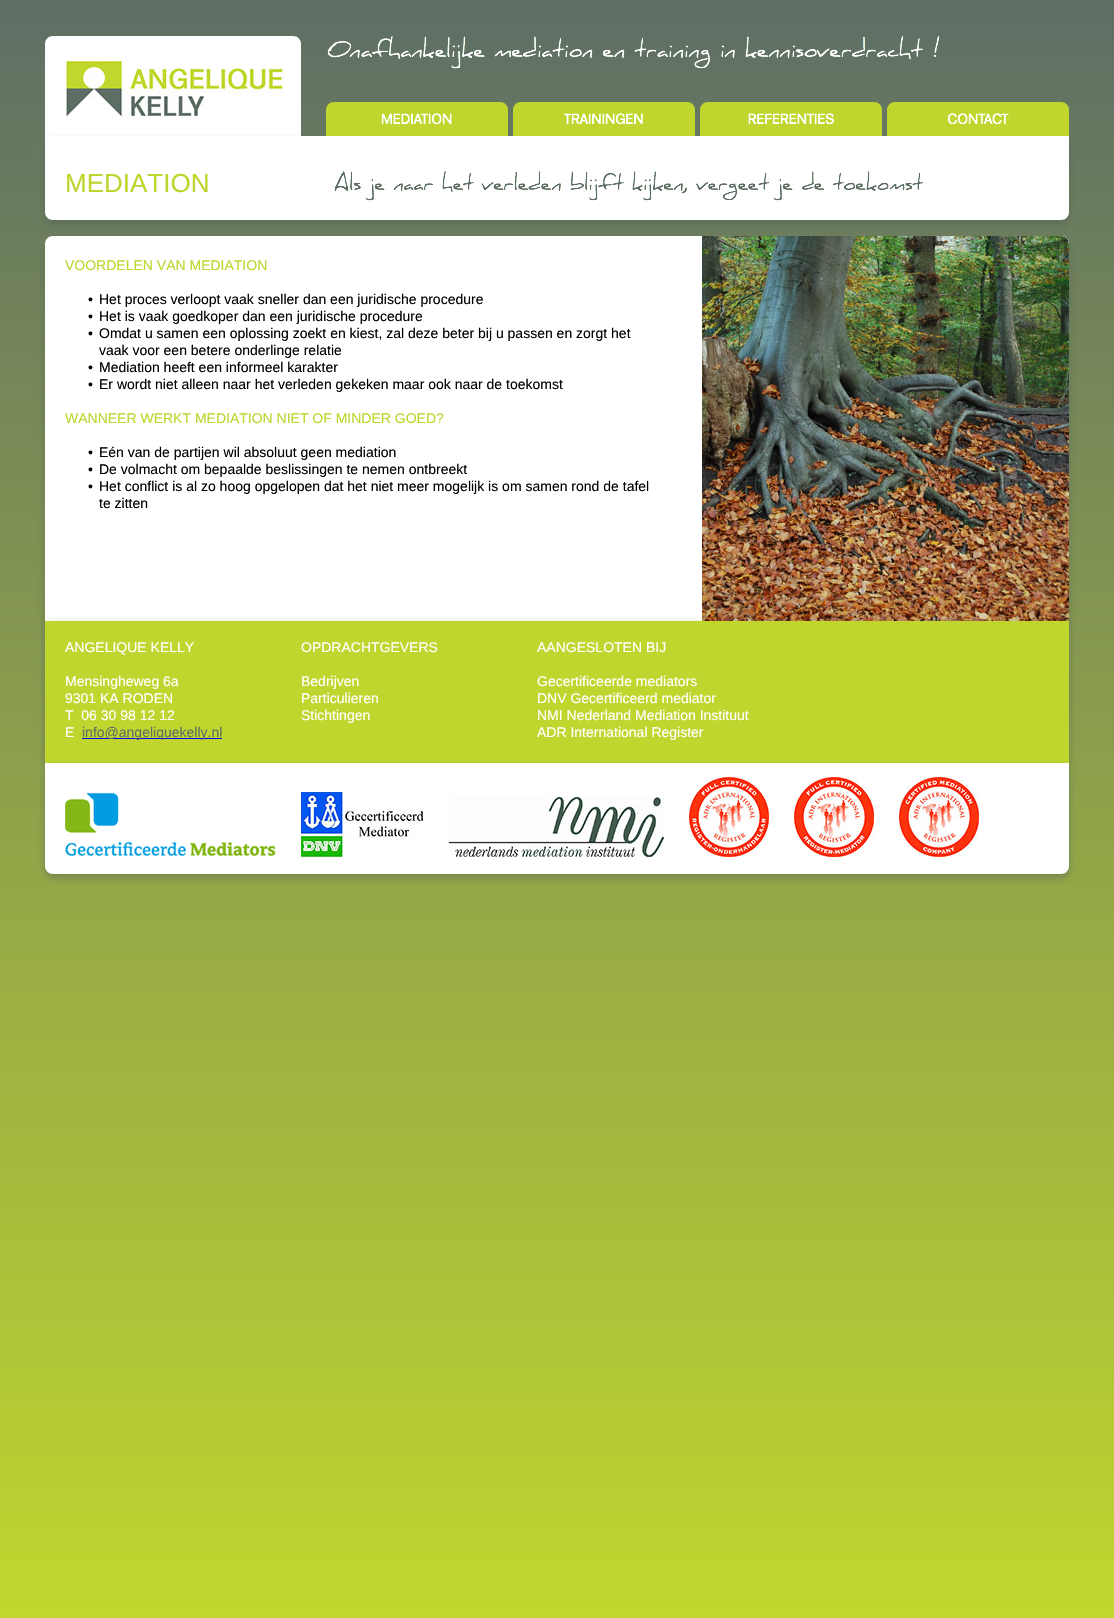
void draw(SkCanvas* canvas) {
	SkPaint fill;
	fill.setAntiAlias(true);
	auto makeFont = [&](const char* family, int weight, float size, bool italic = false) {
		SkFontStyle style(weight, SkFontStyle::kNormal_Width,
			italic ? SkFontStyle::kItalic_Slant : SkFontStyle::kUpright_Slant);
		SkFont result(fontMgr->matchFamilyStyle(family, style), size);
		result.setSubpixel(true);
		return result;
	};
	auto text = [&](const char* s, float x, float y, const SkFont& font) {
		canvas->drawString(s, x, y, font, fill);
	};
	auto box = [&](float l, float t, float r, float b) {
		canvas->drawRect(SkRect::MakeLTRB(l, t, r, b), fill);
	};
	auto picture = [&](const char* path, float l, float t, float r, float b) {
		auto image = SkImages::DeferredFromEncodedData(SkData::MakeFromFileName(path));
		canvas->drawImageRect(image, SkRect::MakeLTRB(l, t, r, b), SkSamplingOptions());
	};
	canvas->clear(0xFFFFFFFF);
	{
		const SkColor colors[] = {0xFF5E6E65, 0xFFC1D72E};
		const float stops[] = {0, 1};
		const SkPoint ends[] = {{557, 0}, {557, 1618}};
		fill.setShader(SkGradientShader::MakeLinear(ends, colors, stops, 2, SkTileMode::kClamp));
		fill.setAlpha(255);
	}
	box(0, 0, 1114, 1618);
	fill.setShader(nullptr);
	fill.setColor(0xFFFFFFFF);
	canvas->drawPath(SkPathBuilder().moveTo(53, 36).lineTo(293, 36).cubicTo(297.5f, 36, 301, 39.5f, 301, 44).lineTo(301, 136).lineTo(45, 136).lineTo(45, 44).cubicTo(45, 39.5f, 48.5f, 36, 53, 36).close().detach(), fill);
	picture("image0.png", 61, 61, 285, 117);
	picture("image1.png", 327, 36, 940, 69);
	fill.setColor(0x804E5F55);
	fill.setMaskFilter(SkMaskFilter::MakeBlur(kNormal_SkBlurStyle, 4));
	canvas->drawRoundRect(SkRect::MakeLTRB(45, 142, 1069, 226), 8, 8, fill);
	fill.setMaskFilter(nullptr);
	fill.setColor(0xFFC0D62E);
	canvas->drawPath(SkPathBuilder().moveTo(334, 102).lineTo(500, 102).cubicTo(504.5f, 102, 508, 105.5f, 508, 110).lineTo(508, 136).lineTo(326, 136).lineTo(326, 110).cubicTo(326, 105.5f, 329.5f, 102, 334, 102).close().detach(), fill);
	picture("image2.png", 381, 113, 452, 125);
	canvas->drawPath(SkPathBuilder().moveTo(521, 102).lineTo(687, 102).cubicTo(691.5f, 102, 695, 105.5f, 695, 110).lineTo(695, 136).lineTo(513, 136).lineTo(513, 110).cubicTo(513, 105.5f, 516.5f, 102, 521, 102).close().detach(), fill);
	picture("image3.png", 563, 113, 643, 125);
	canvas->drawPath(SkPathBuilder().moveTo(708, 102).lineTo(874, 102).cubicTo(878.5f, 102, 882, 105.5f, 882, 110).lineTo(882, 136).lineTo(700, 136).lineTo(700, 110).cubicTo(700, 105.5f, 703.5f, 102, 708, 102).close().detach(), fill);
	picture("image4.png", 748, 113, 834, 125);
	canvas->drawPath(SkPathBuilder().moveTo(895, 102).lineTo(1061, 102).cubicTo(1065.5f, 102, 1069, 105.5f, 1069, 110).lineTo(1069, 136).lineTo(887, 136).lineTo(887, 110).cubicTo(887, 105.5f, 890.5f, 102, 895, 102).close().detach(), fill);
	picture("image5.png", 947, 113, 1009, 125);
	fill.setColor(0xFFFFFFFF);
	canvas->drawPath(SkPathBuilder().moveTo(45, 136).lineTo(1069, 136).lineTo(1069, 212).cubicTo(1069, 216.5f, 1065.5f, 220, 1061, 220).lineTo(53, 220).cubicTo(48.5f, 220, 45, 216.5f, 45, 212).close().detach(), fill);
	picture("image6.png", 334, 171, 924, 201);
	fill.setColor(0x804E5F55);
	fill.setMaskFilter(SkMaskFilter::MakeBlur(kNormal_SkBlurStyle, 4));
	canvas->drawRoundRect(SkRect::MakeLTRB(45, 244, 1069, 630), 8, 8, fill);
	fill.setMaskFilter(nullptr);
	fill.setColor(0xFFFFFFFF);
	canvas->drawPath(SkPathBuilder().moveTo(53, 236).lineTo(1061, 236).cubicTo(1065.5f, 236, 1069, 239.5f, 1069, 244).lineTo(1069, 622).lineTo(45, 622).lineTo(45, 244).cubicTo(45, 239.5f, 48.5f, 236, 53, 236).close().detach(), fill);
	fill.setColor(0x804E5F55);
	fill.setMaskFilter(SkMaskFilter::MakeBlur(kNormal_SkBlurStyle, 4));
	canvas->drawRect(SkRect::MakeLTRB(45, 625, 1069, 767), fill);
	fill.setMaskFilter(nullptr);
	picture("image7.png", 702, 236, 1069, 621);
	fill.setColor(0xFFC0D62E);
	box(45, 621, 1069, 763);
	fill.setColor(0xFF0000FF);
	box(82, 738, 222, 739);
	fill.setColor(0x804E5F55);
	fill.setMaskFilter(SkMaskFilter::MakeBlur(kNormal_SkBlurStyle, 4));
	canvas->drawRoundRect(SkRect::MakeLTRB(45, 767, 1069, 878), 8, 8, fill);
	fill.setMaskFilter(nullptr);
	fill.setColor(0xFFFFFFFF);
	canvas->drawPath(SkPathBuilder().moveTo(45, 763).lineTo(1069, 763).lineTo(1069, 866).cubicTo(1069, 870.5f, 1065.5f, 874, 1061, 874).lineTo(53, 874).cubicTo(48.5f, 874, 45, 870.5f, 45, 866).close().detach(), fill);
	picture("image8.png", 65, 792, 276, 857);
	picture("image9.png", 301, 792, 424, 857);
	picture("image10.png", 449, 797, 664, 857);
	picture("image11.png", 689, 777, 769, 857);
	picture("image12.png", 794, 777, 874, 857);
	picture("image13.png", 899, 777, 979, 857);
	auto font1 = makeFont("Liberation Sans", 400, 26);
	fill.setColor(0xFFBFD52E);
	text("MEDIATION", 65, 192, font1);
	auto font2 = makeFont("Liberation Sans", 400, 14);
	text("VOORDELEN VAN MEDIATION", 65, 270, font2);
	fill.setColor(0xFF000000);
	text("•", 88, 304, font2);
	text("Het proces verloopt vaak sneller dan een juridische procedure", 99, 304, font2);
	text("•", 88, 321, font2);
	text("Het is vaak goedkoper dan een juridische procedure", 99, 321, font2);
	text("•", 88, 338, font2);
	text("Omdat u samen een oplossing zoekt en kiest, zal deze beter bij u passen en zorgt het", 99, 338, font2);
	text("vaak voor een betere onderlinge relatie", 99, 355, font2);
	text("•", 88, 372, font2);
	text("Mediation heeft een informeel karakter", 99, 372, font2);
	text("•", 88, 389, font2);
	text("Er wordt niet alleen naar het verleden gekeken maar ook naar de toekomst", 99, 389, font2);
	fill.setColor(0xFFBFD52E);
	text("WANNEER WERKT MEDIATION NIET OF MINDER GOED?", 65, 423, font2);
	fill.setColor(0xFF000000);
	text("•", 88, 457, font2);
	text("Eén van de partijen wil absoluut geen mediation", 99, 457, font2);
	text("•", 88, 474, font2);
	text("De volmacht om bepaalde beslissingen te nemen ontbreekt", 99, 474, font2);
	text("•", 88, 491, font2);
	text("Het conflict is al zo hoog opgelopen dat het niet meer mogelijk is om samen rond de tafel", 99, 491, font2);
	text("te zitten", 99, 508, font2);
	fill.setColor(0xFFFFFFFF);
	text("ANGELIQUE KELLY", 65, 652, font2);
	text("Mensingheweg 6a", 65, 686, font2);
	text("9301 KA RODEN", 65, 703, font2);
	text("T  06 30 98 12 12", 65, 720, font2);
	text("E", 65, 737, font2);
	fill.setColor(0xFF5E6E65);
	text("info@angeliquekelly.nl", 82, 737, font2);
	fill.setColor(0xFFFFFFFF);
	text("OPDRACHTGEVERS", 301, 652, font2);
	text("Bedrijven", 301, 686, font2);
	text("Particulieren", 301, 703, font2);
	text("Stichtingen", 301, 720, font2);
	text("AANGESLOTEN BIJ", 537, 652, font2);
	text("Gecertificeerde mediators", 537, 686, font2);
	text("DNV Gecertificeerd mediator", 537, 703, font2);
	text("NMI Nederland Mediation Instituut", 537, 720, font2);
	text("ADR International Register", 537, 737, font2);
}
